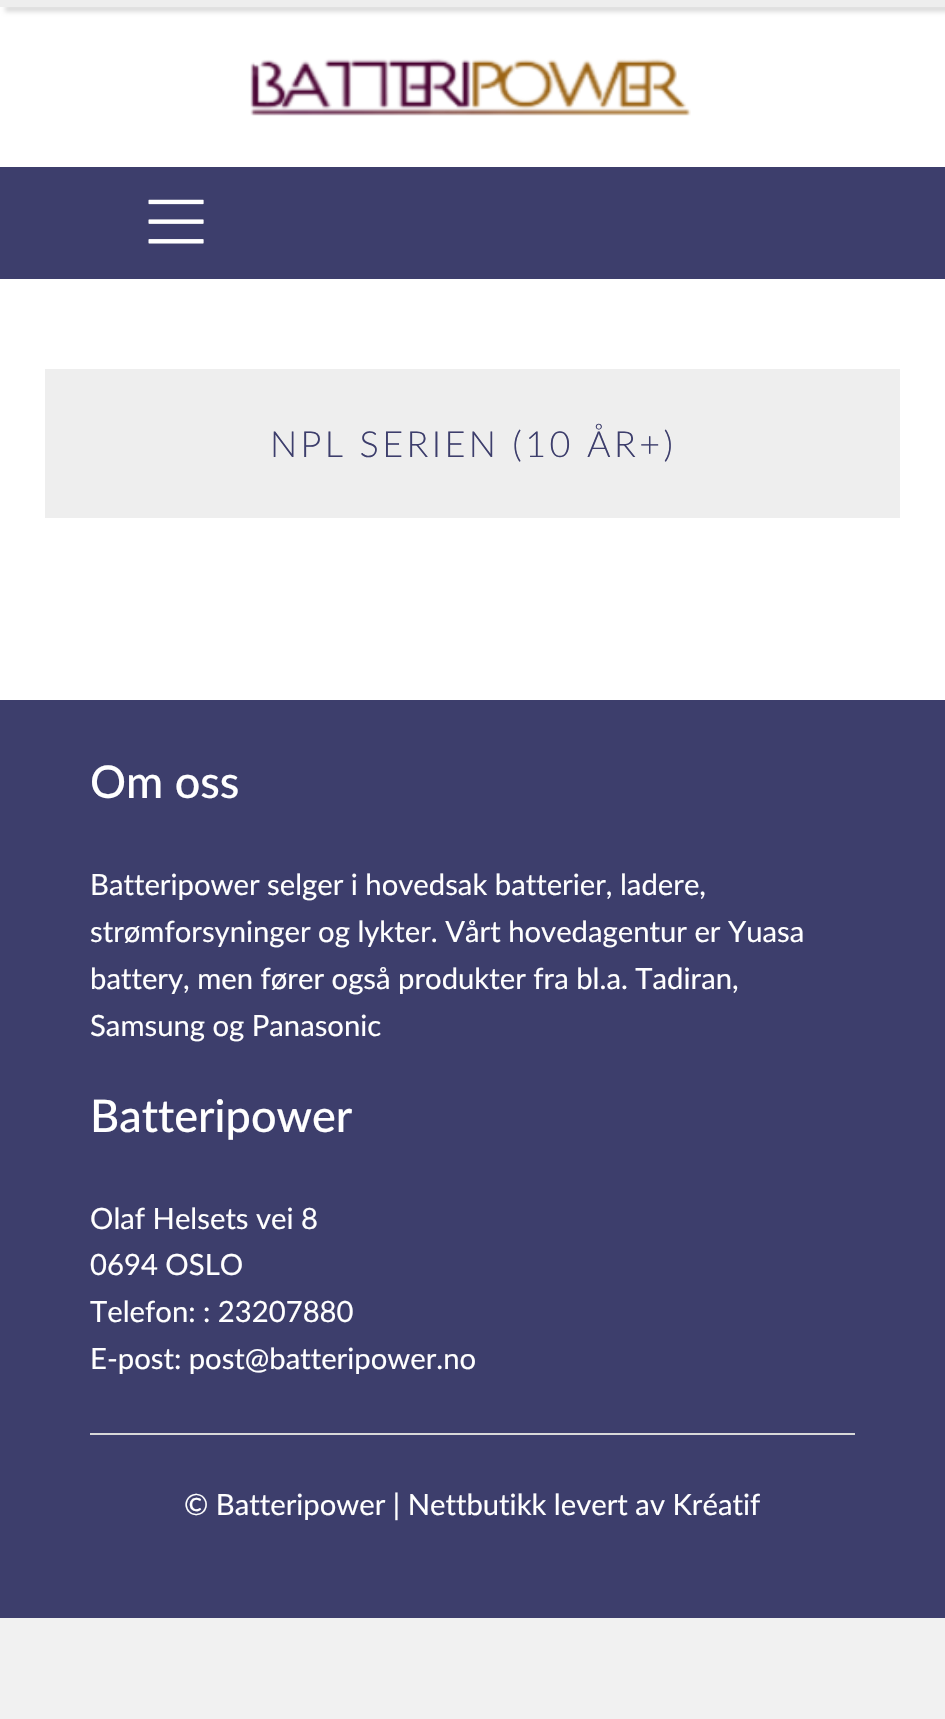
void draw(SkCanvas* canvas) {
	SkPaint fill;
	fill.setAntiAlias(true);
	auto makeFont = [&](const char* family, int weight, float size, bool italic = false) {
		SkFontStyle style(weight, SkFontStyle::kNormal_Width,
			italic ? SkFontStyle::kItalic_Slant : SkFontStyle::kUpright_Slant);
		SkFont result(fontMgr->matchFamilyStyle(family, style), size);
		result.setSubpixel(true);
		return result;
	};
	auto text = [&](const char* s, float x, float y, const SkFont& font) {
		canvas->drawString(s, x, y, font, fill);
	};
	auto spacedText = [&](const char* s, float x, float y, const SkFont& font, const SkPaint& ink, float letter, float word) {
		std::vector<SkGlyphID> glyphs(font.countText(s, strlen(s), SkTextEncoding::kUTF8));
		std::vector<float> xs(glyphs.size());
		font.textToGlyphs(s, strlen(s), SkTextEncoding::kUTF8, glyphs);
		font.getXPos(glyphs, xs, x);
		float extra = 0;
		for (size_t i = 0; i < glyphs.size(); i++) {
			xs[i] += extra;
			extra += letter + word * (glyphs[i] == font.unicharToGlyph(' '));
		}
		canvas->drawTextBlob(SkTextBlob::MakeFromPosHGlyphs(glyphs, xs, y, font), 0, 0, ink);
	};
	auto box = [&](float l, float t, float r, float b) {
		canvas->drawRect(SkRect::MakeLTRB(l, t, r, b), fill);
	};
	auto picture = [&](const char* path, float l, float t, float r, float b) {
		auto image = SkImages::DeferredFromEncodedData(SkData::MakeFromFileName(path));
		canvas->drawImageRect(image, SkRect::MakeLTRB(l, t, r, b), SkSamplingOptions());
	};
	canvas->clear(0xFFF1F1F1);
	fill.setColor(0xFFFFFFFF);
	box(0, 7, 945, 700);
	fill.setColor(0xFFDDDDDD);
	fill.setMaskFilter(SkMaskFilter::MakeBlur(kNormal_SkBlurStyle, 2));
	canvas->drawRect(SkRect::MakeLTRB(5, 5, 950, 12), fill);
	fill.setMaskFilter(nullptr);
	fill.setColor(0xFFEEEEEE);
	box(0, 0, 945, 7);
	picture("image0.png", 250, 58, 691, 116);
	fill.setColor(0xFF3D3E6C);
	box(0, 167, 945, 279);
	picture("image1.png", 148, 199, 204, 244);
	fill.setColor(0xFFEEEEEE);
	box(45, 369, 900, 518);
	fill.setColor(0xFF3D3E6C);
	box(0, 700, 945, 1618);
	fill.setColor(0xFFD8D8D8);
	box(90, 1433, 855, 1435);
	auto font1 = makeFont("Lato", 300, 36);
	fill.setColor(0xFF3D3E6C);
	spacedText("NPL SERIEN (10 ÅR+)", 270, 457, font1, fill, 3.4f, 0);
	auto font2 = makeFont("Lato", 500, 45);
	fill.setColor(0xFFFFFFFF);
	text("Om oss", 90, 798, font2);
	auto font3 = makeFont("Lato", 400, 29.25f);
	text("Batteripower selger i hovedsak batterier, ladere,", 90, 895, font3);
	text("strømforsyninger og lykter. Vårt hovedagentur er Yuasa", 90, 942, font3);
	text("battery, men fører også produkter fra bl.a. Tadiran,", 90, 989, font3);
	text("Samsung og Panasonic", 90, 1036, font3);
	text("Batteripower", 90, 1132, font2);
	text("Olaf Helsets vei 8", 90, 1229, font3);
	text("0694 OSLO", 90, 1275, font3);
	text("Telefon: : 23207880", 90, 1322, font3);
	text("E-post: post@batteripower.no", 90, 1369, font3);
	text("© Batteripower | Nettbutikk levert av Kréatif", 184, 1515, font3);
}
